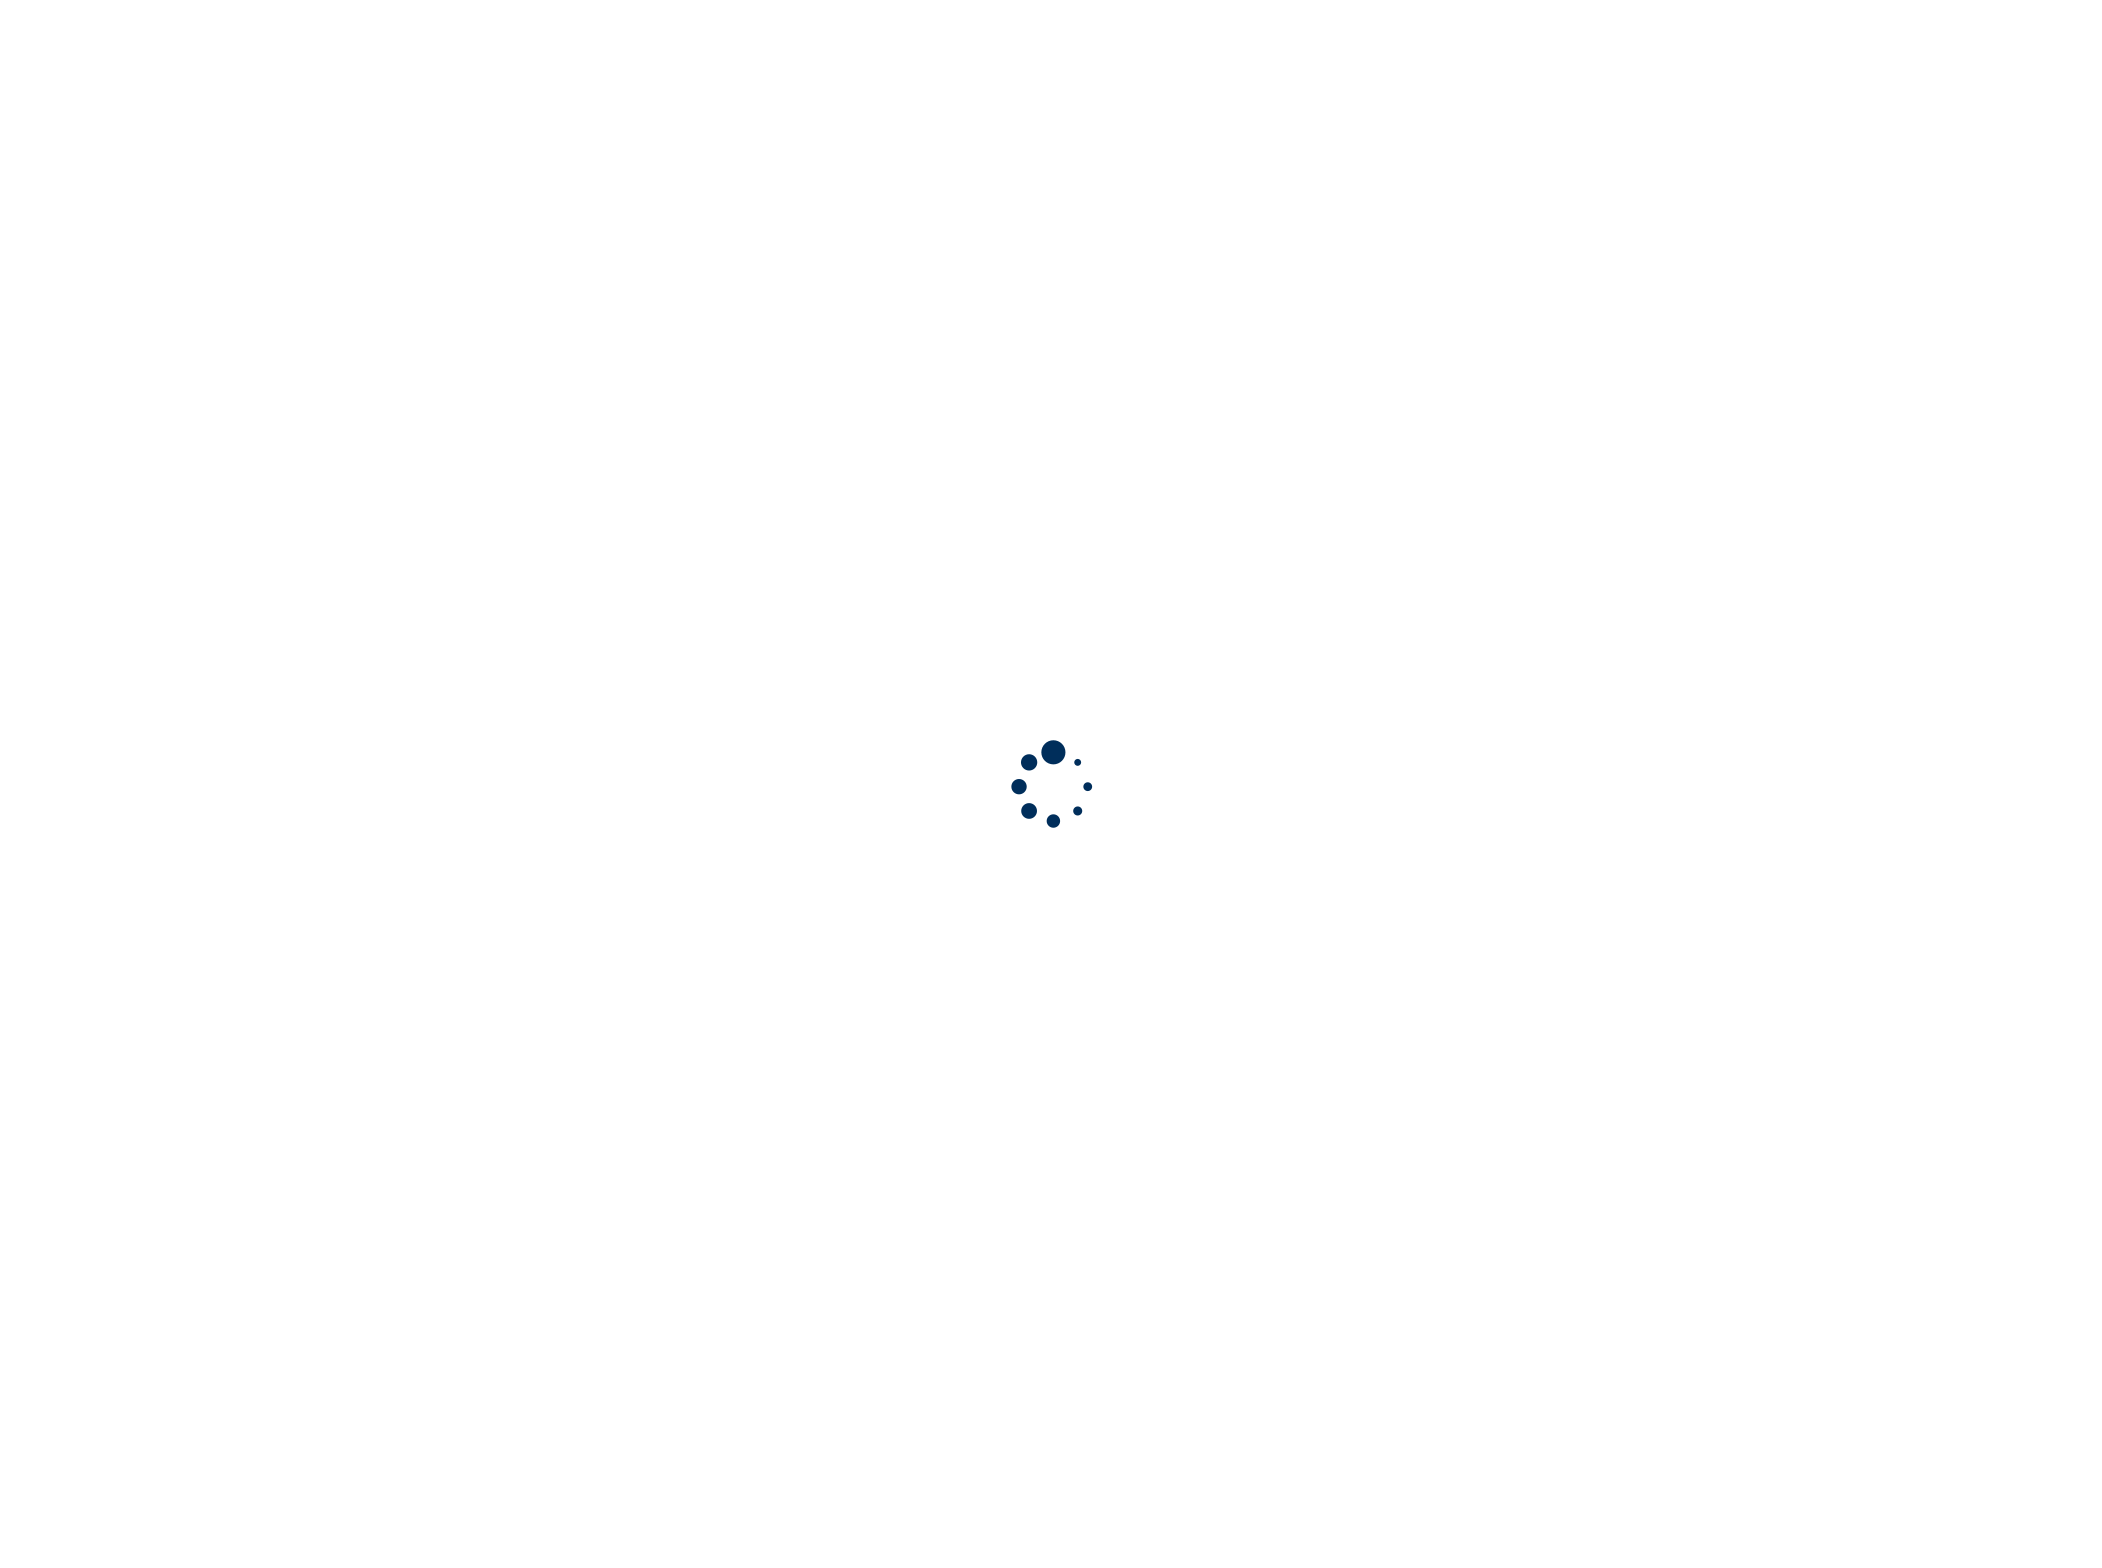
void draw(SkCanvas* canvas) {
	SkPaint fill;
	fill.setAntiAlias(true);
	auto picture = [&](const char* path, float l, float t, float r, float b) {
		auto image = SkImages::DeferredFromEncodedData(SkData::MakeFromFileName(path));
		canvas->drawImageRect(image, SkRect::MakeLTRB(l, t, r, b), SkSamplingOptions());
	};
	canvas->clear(0xFFFFFFFF);
	picture("image0.png", 1011, 740, 1093, 828);
}
